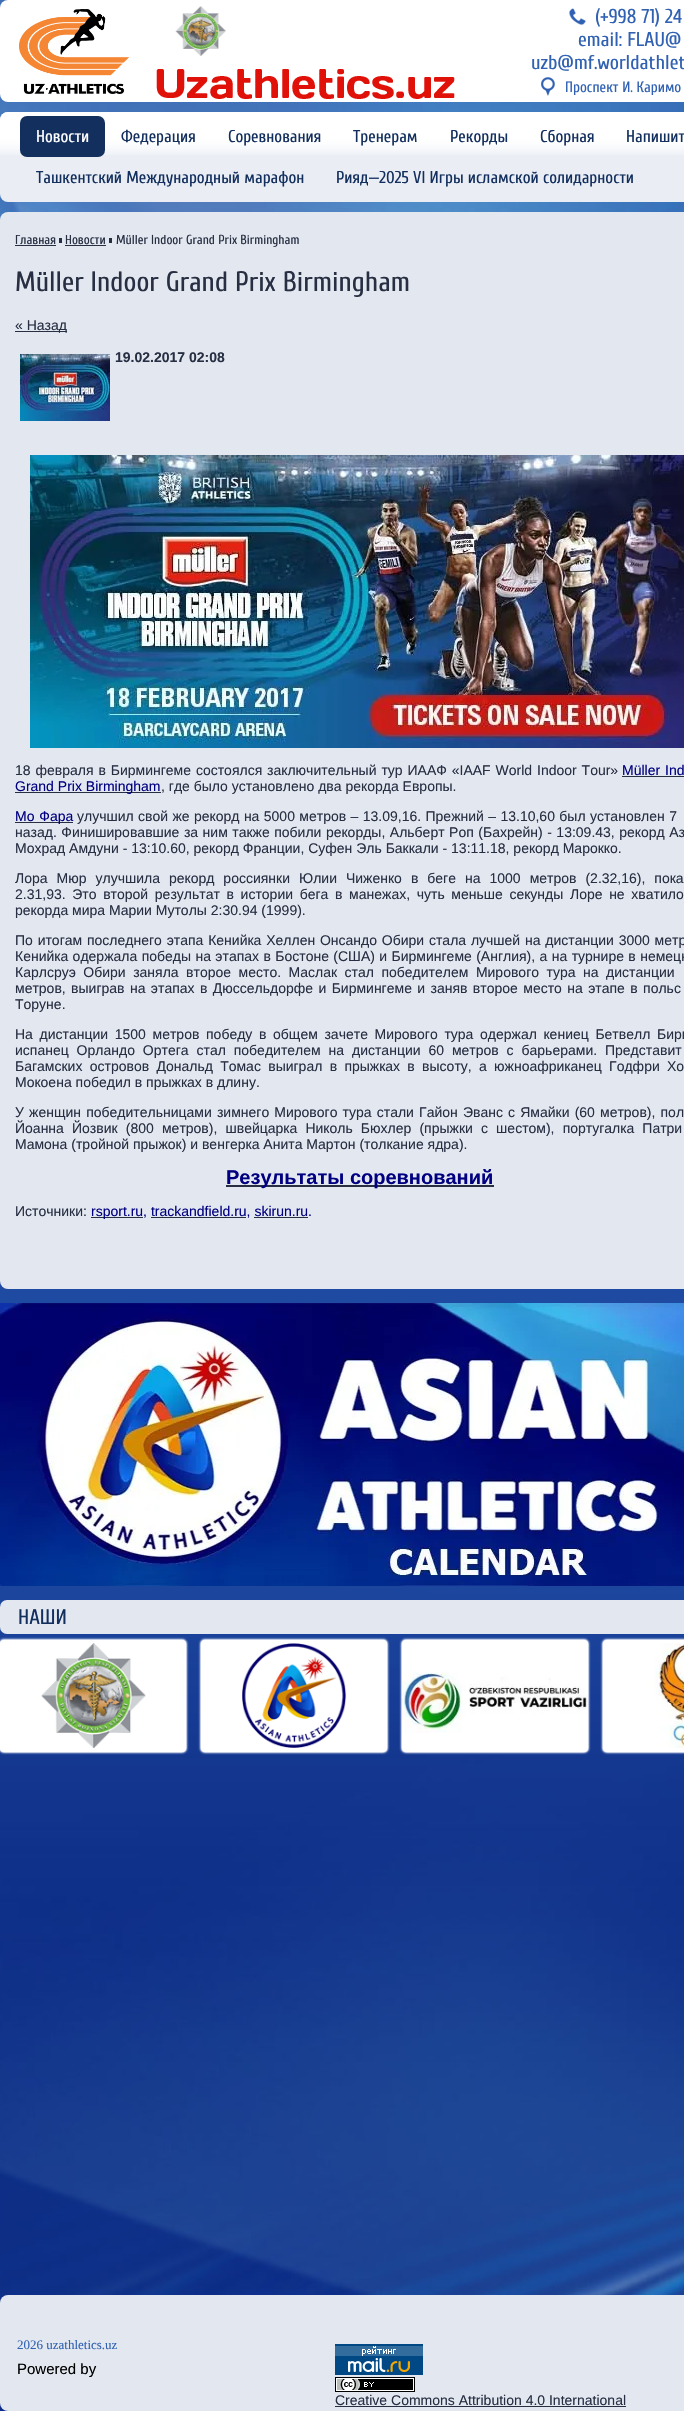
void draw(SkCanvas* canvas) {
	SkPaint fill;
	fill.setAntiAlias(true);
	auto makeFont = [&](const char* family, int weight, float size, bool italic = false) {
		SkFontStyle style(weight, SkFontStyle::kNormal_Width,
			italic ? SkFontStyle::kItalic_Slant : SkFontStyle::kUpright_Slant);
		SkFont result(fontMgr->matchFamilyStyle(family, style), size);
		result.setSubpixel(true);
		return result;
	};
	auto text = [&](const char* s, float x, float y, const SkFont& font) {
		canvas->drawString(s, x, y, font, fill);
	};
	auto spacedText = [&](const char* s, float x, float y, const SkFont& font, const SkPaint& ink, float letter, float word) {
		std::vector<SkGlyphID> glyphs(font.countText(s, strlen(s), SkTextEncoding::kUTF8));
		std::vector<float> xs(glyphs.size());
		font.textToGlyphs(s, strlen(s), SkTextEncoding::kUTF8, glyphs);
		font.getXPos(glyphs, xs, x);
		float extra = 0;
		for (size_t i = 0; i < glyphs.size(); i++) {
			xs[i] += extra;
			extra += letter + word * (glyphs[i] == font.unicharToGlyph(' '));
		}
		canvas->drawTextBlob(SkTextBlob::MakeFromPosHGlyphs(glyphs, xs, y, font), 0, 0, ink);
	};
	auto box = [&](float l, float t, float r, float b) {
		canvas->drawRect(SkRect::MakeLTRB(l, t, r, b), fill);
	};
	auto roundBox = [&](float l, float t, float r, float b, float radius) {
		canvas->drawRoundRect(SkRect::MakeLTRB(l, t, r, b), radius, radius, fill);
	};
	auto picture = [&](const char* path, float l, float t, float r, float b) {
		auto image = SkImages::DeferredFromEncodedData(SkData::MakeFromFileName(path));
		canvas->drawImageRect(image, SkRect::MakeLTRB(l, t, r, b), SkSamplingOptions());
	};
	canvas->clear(0xFF1E4AA1);
	picture("image0.png", 0, 0, 684, 220);
	picture("image1.png", 0, 1586, 684, 2411);
	fill.setColor(0xFFFFFFFF);
	roundBox(0, 0, 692, 102, 8);
	picture("image2.png", 19, 9, 129, 94);
	picture("image3.png", 175, 6, 226, 56);
	picture("image4.png", 156, 69, 455, 99);
	picture("image5.png", 569, 8, 586, 25);
	picture("image6.png", 541, 77, 555, 96);
	fill.setColor(0xFFEAEEF4);
	roundBox(0, 112, 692, 202, 8);
	picture("image7.png", 0, 112, 684, 155);
	fill.setColor(0xFF132F5E);
	roundBox(20, 116, 105, 157, 7);
	fill.setColor(0xFFE3E8F0);
	roundBox(0, 212, 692, 1289, 8);
	fill.setColor(0xFF282F43);
	box(15, 245, 56, 246);
	box(59, 238, 62, 243);
	box(65, 245, 106, 246);
	box(109, 238, 112, 243);
	box(15, 331, 67, 332);
	picture("image8.png", 20, 354, 110, 421);
	picture("image9.png", 30, 455, 684, 748);
	box(622, 776, 684, 777);
	box(15, 792, 161, 793);
	box(15, 822, 73, 823);
	box(226, 1185, 494, 1187);
	box(91, 1217, 143, 1218);
	picture("image10.png", 0, 1303, 684, 1586);
	fill.setColor(0xFFE3E8F0);
	roundBox(0, 1600, 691, 1634, 7);
	fill.setColor(0xFFFFFFFF);
	fill.setMaskFilter(SkMaskFilter::MakeBlur(kNormal_SkBlurStyle, 1));
	canvas->drawRoundRect(SkRect::MakeLTRB(-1, 1639, 187, 1753), 5, 5, fill);
	fill.setMaskFilter(nullptr);
	roundBox(0, 1640, 186, 1752, 4);
	picture("image11.png", 41, 1643, 146, 1748);
	fill.setMaskFilter(SkMaskFilter::MakeBlur(kNormal_SkBlurStyle, 1));
	canvas->drawRoundRect(SkRect::MakeLTRB(200, 1639, 388, 1753), 5, 5, fill);
	fill.setMaskFilter(nullptr);
	roundBox(201, 1640, 387, 1752, 4);
	picture("image12.png", 242, 1643, 347, 1748);
	fill.setMaskFilter(SkMaskFilter::MakeBlur(kNormal_SkBlurStyle, 1));
	canvas->drawRoundRect(SkRect::MakeLTRB(401, 1639, 589, 1753), 5, 5, fill);
	fill.setMaskFilter(nullptr);
	roundBox(402, 1640, 588, 1752, 4);
	picture("image13.png", 402, 1643, 588, 1733);
	fill.setMaskFilter(SkMaskFilter::MakeBlur(kNormal_SkBlurStyle, 1));
	canvas->drawRoundRect(SkRect::MakeLTRB(602, 1639, 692, 1753), 5, 5, fill);
	fill.setMaskFilter(nullptr);
	roundBox(603, 1640, 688, 1752, 4);
	picture("image14.png", 603, 1643, 684, 1748);
	fill.setColor(0xFFE3E8F0);
	roundBox(0, 2295, 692, 2411, 8);
	picture("image15.png", 335, 2344, 423, 2375);
	picture("image16.png", 335, 2377, 415, 2392);
	fill.setColor(0xFF282F43);
	box(335, 2406, 626, 2407);
	auto font1 = makeFont("Cuprum", 400, 20);
	fill.setColor(0xFF3061B2);
	text("(+998 71) 24", 595, 23, font1);
	text("email: FLAU@", 578, 46, font1);
	text("uzb@mf.worldathlet", 531, 69, font1);
	auto font2 = makeFont("Cuprum", 400, 15);
	text("Проспект И. Каримо", 565, 92, font2);
	auto font3 = makeFont("Cuprum", 400, 17);
	fill.setColor(0xFFFFFFFF);
	text("Новости", 36, 142, font3);
	fill.setColor(0xFF132F5E);
	text("Федерация", 121, 142, font3);
	text("Соревнования", 228, 142, font3);
	text("Тренерам", 353, 142, font3);
	text("Рекорды", 450, 142, font3);
	text("Сборная", 540, 142, font3);
	text("Напишит", 626, 142, font3);
	text("Ташкентский Международный марафон", 36, 183, font3);
	text("Рияд—2025 VI Игры исламской солидарности", 336, 183, font3);
	auto font4 = makeFont("Cuprum", 400, 13);
	fill.setColor(0xFF282F43);
	text("Главная", 15, 244, font4);
	text("Новости", 65, 244, font4);
	text("Müller Indoor Grand Prix Birmingham", 116, 244, font4);
	auto font5 = makeFont("Cuprum", 400, 28);
	text("Müller Indoor Grand Prix Birmingham", 15, 291, font5);
	auto font6 = makeFont("Liberation Sans", 400, 14);
	text("« Назад", 15, 330, font6);
	auto font7 = makeFont("Liberation Sans", 700, 14);
	text("19.02.2017 02:08", 115, 362, font7);
	spacedText("18 февраля в Бирмингеме состоялся заключительный тур ИААФ «IAAF World Indoor Tour»", 15, 775, font6, fill, 0, 1);
	fill.setColor(0xFF000080);
	spacedText("Müller Ind", 622, 775, font6, fill, 0, 1);
	text("Grand Prix Birmingham", 15, 791, font6);
	fill.setColor(0xFF282F43);
	text(", где было установлено два рекорда Европы.", 161, 791, font6);
	fill.setColor(0xFF000080);
	spacedText("Мо Фара", 15, 821, font6, fill, 0, 1);
	fill.setColor(0xFF282F43);
	spacedText("улучшил свой же рекорд на 5000 метров – 13.09,16. Прежний – 13.10,60 был установлен 7", 77, 821, font6, fill, 0, 0.5f);
	spacedText("назад. Финишировавшие за ним также побили рекорды, Альберт Роп (Бахрейн) - 13:09.43, рекорд Аз", 15, 837, font6, fill, 0, 0.6f);
	text("Мохрад Амдуни - 13:10.60, рекорд Франции, Суфен Эль Баккали - 13:11.18, рекорд Марокко.", 15, 853, font6);
	spacedText("Лора Мюр улучшила рекорд россиянки Юлии Чиженко в беге на 1000 метров (2.32,16), пока", 15, 883, font6, fill, 0, 5.1f);
	spacedText("2.31,93. Это второй результат в истории бега в манежах, чуть меньше секунды Лоре не хватило", 15, 899, font6, fill, 0, 2.75f);
	text("рекорда мира Марии Мутолы 2:30.94 (1999).", 15, 915, font6);
	spacedText("По итогам последнего этапа Кенийка Хеллен Онсандо Обири стала лучшей на дистанции 3000 метр", 15, 945, font6, fill, 0, 0.9f);
	spacedText("Кенийка одержала победы на этапах в Бостоне (США) и Бирмингеме (Англия), а на турнире в немецк", 15, 961, font6, fill, 0, 0.5f);
	spacedText("Карлсруэ Обири заняла второе место. Маслак стал победителем Мирового тура на дистанции", 15, 977, font6, fill, 0, 3.6f);
	spacedText("метров, выиграв на этапах в Дюссельдорфе и Бирмингеме и заняв второе место на этапе в польс", 15, 993, font6, fill, 0, 1.5f);
	text("Торуне.", 15, 1009, font6);
	spacedText("На дистанции 1500 метров победу в общем зачете Мирового тура одержал кениец Бетвелл Бирг", 15, 1039, font6, fill, 0, 2.75f);
	spacedText("испанец Орландо Ортега стал победителем на дистанции 60 метров с барьерами. Представит", 15, 1055, font6, fill, 0, 4);
	spacedText("Багамских островов Дональд Томас выиграл в прыжках в высоту, а южноафриканец Годфри Хо", 15, 1071, font6, fill, 0, 3.4f);
	text("Мокоена победил в прыжках в длину.", 15, 1087, font6);
	spacedText("У женщин победительницами зимнего Мирового тура стали Гайон Эванс с Ямайки (60 метров), пол", 15, 1117, font6, fill, 0, 1.25f);
	spacedText("Йоанна Йозвик (800 метров), швейцарка Николь Бюхлер (прыжки с шестом), португалка Патри", 15, 1133, font6, fill, 0, 4.25f);
	text("Мамона (тройной прыжок) и венгерка Анита Мартон (толкание ядра).", 15, 1149, font6);
	auto font8 = makeFont("Liberation Sans", 700, 20);
	fill.setColor(0xFF000080);
	text("Результаты соревнований", 226, 1184, font8);
	fill.setColor(0xFF282F43);
	text("Источники:", 15, 1216, font6);
	fill.setColor(0xFF000080);
	text("rsport.ru, trackandfield.ru, skirun.ru.", 91, 1216, font6);
	fill.setColor(0xFF282F43);
	box(151, 1217, 246, 1218);
	box(254, 1217, 308, 1218);
	auto font9 = makeFont("Cuprum", 400, 21);
	fill.setColor(0xFF132F5E);
	spacedText("НАШИ", 18, 1624, font9, fill, 0, 828);
	auto font10 = makeFont("Liberation Serif", 400, 13);
	fill.setColor(0xFF3061B2);
	text("2026 uzathletics.uz", 17, 2349, font10);
	auto font11 = makeFont("Liberation Sans", 400, 15);
	fill.setColor(0xFF000000);
	text("Powered by", 17, 2374, font11);
	fill.setColor(0xFF282F43);
	text("Creative Commons Attribution 4.0 International", 335, 2405, font6);
}
